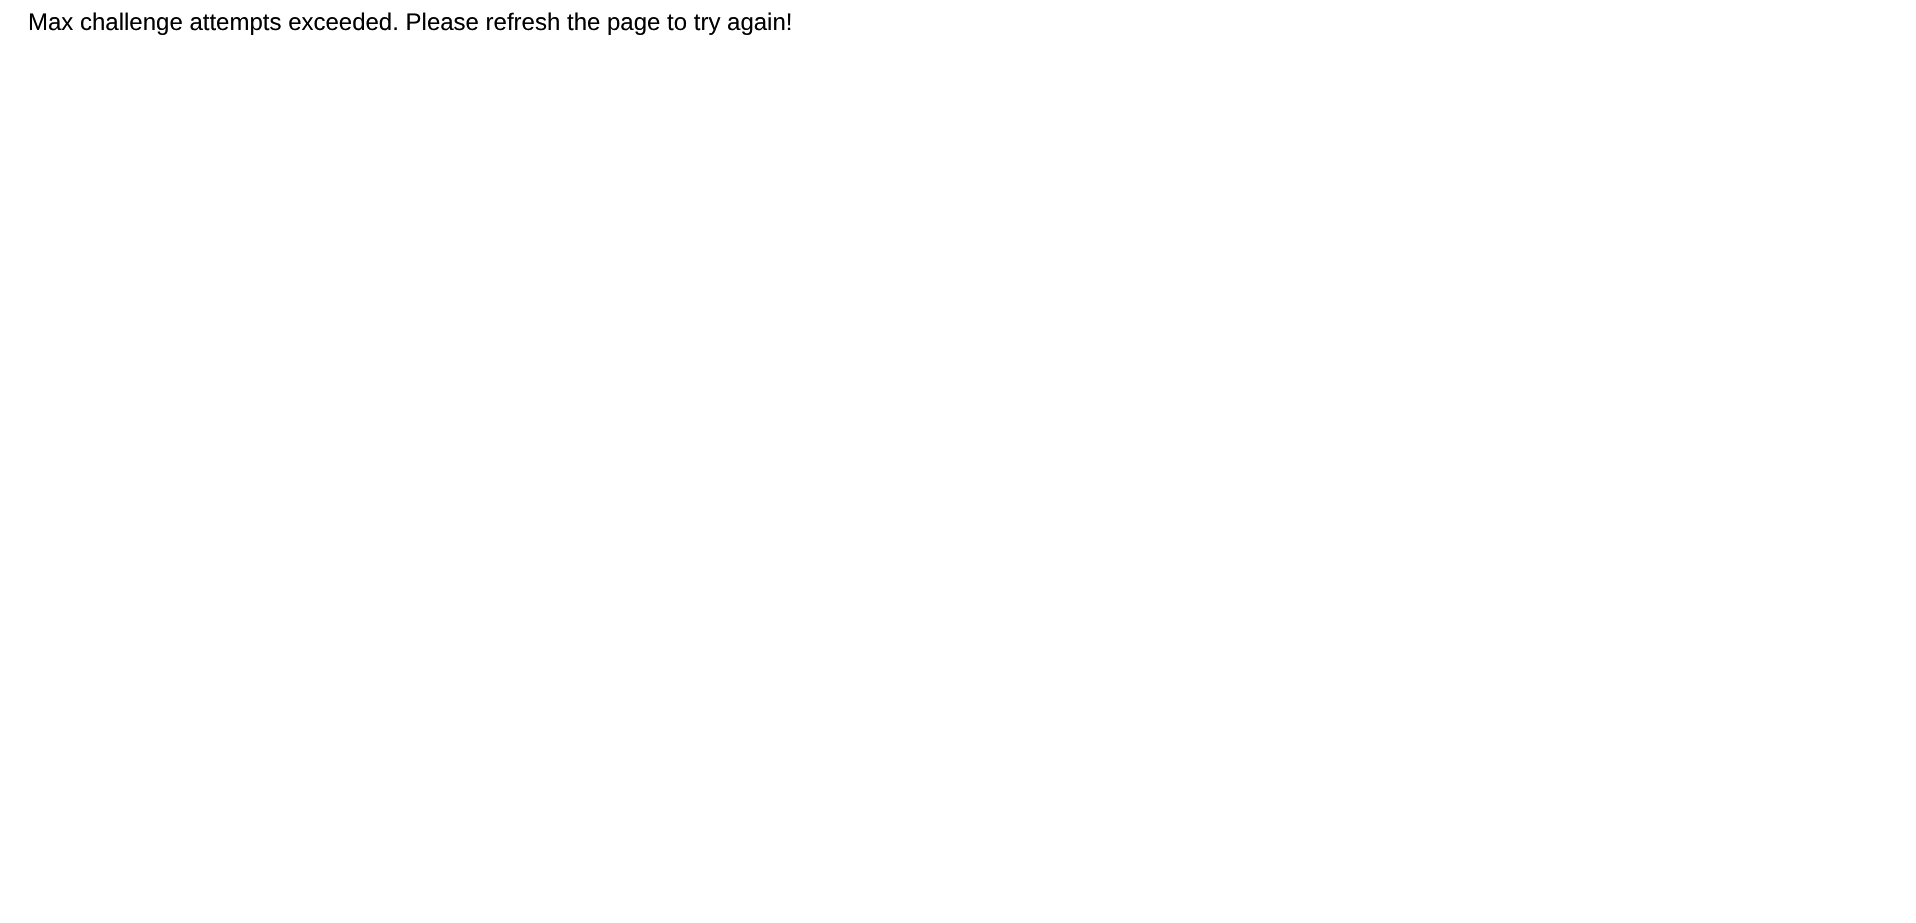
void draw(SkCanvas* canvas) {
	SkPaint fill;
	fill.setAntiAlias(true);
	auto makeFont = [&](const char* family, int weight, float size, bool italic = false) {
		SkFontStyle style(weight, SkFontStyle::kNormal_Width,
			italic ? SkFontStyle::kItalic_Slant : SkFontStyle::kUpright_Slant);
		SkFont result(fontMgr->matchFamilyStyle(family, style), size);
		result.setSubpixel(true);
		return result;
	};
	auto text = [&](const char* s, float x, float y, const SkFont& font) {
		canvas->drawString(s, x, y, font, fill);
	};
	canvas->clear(0xFFFFFFFF);
	auto font1 = makeFont("Liberation Sans", 400, 24);
	fill.setColor(0xFF000000);
	text("Max challenge attempts exceeded. Please refresh the page to try again!", 28, 30, font1);
}
